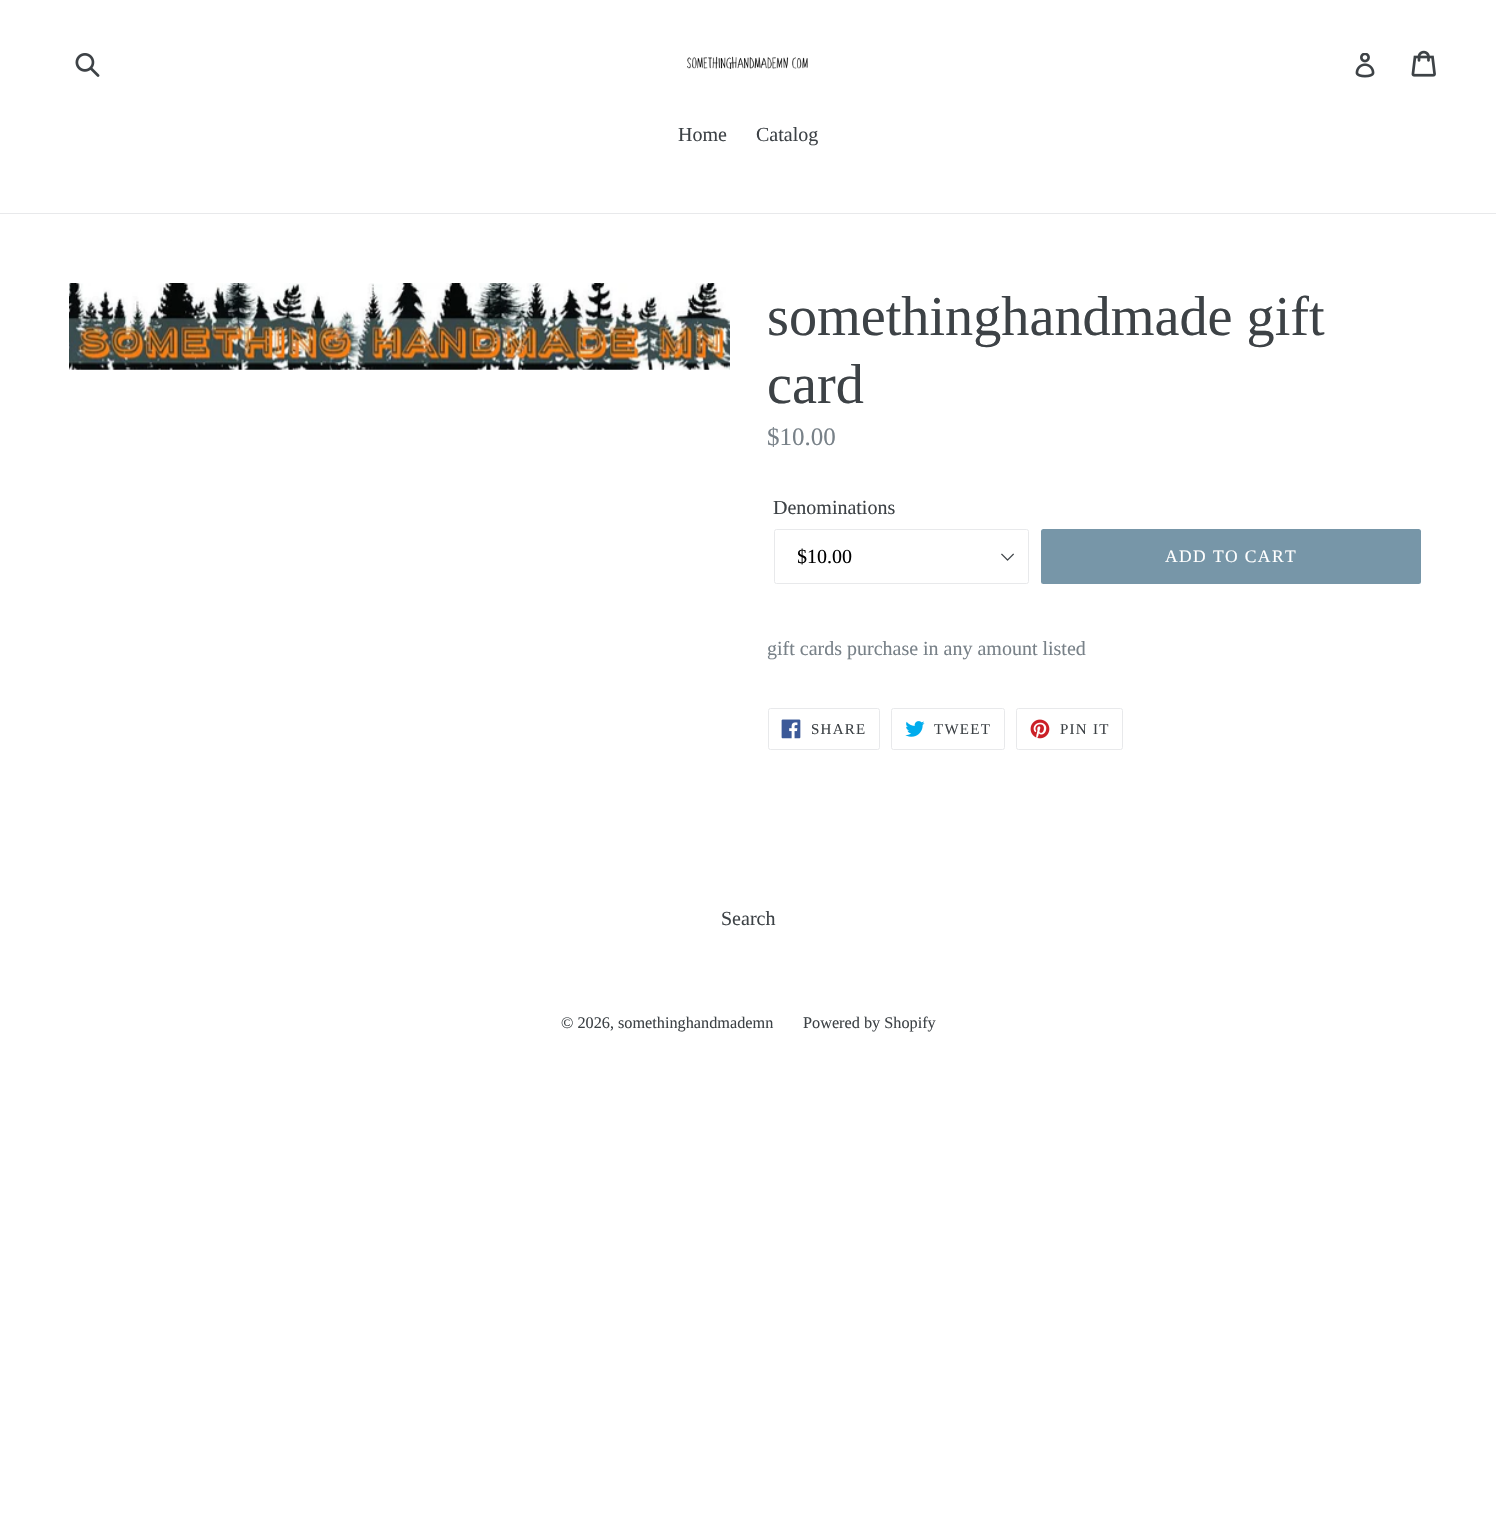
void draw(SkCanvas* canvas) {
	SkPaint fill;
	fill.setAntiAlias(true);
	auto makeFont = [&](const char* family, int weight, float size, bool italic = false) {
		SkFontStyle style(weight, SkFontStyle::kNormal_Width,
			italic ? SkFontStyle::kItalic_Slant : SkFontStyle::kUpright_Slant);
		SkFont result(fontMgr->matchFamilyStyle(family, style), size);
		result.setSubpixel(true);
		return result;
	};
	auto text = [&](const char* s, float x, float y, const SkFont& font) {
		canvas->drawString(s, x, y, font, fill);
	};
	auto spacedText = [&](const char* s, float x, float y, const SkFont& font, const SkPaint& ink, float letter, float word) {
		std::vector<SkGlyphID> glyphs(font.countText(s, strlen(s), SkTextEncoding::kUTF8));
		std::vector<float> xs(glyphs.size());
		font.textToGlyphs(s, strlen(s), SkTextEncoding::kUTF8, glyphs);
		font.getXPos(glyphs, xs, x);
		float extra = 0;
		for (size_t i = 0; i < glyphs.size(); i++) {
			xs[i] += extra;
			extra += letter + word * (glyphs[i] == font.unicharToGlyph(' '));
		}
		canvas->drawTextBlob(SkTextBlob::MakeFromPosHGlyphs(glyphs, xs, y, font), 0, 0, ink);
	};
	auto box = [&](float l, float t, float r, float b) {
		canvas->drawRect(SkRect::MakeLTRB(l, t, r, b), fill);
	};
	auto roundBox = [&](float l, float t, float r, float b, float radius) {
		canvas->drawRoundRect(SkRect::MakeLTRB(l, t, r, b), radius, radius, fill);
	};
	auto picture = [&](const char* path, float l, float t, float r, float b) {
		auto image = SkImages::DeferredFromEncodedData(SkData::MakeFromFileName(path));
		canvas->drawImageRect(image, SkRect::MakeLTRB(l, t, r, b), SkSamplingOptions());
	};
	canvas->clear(0xFFFFFFFF);
	picture("image0.png", 75, 53, 100, 77);
	picture("image1.png", 687, 56, 808, 69);
	picture("image2.png", 1355, 53, 1375, 78);
	picture("image3.png", 1411, 50, 1436, 77);
	fill.setColor(0xFFE8E9EB);
	box(0, 213, 1496, 214);
	picture("image4.png", 69, 283, 730, 370);
	picture("image5.png", 1001, 553, 1014, 561);
	fill.setStyle(SkPaint::kStroke_Style);
	fill.setStrokeWidth(1);
	canvas->drawRoundRect(SkRect::MakeLTRB(774.5f, 529.5f, 1028.5f, 583.5f), 2, 2, fill);
	fill.setStyle(SkPaint::kFill_Style);
	fill.setColor(0xFF7796A8);
	roundBox(1041, 529, 1421, 584, 2.5f);
	fill.setStyle(SkPaint::kStroke_Style);
	fill.setColor(0xFFE8E9EB);
	canvas->drawRoundRect(SkRect::MakeLTRB(768.5f, 708.5f, 879.5f, 749.5f), 2, 2, fill);
	picture("image6.png", 781, 719, 801, 739);
	canvas->drawRoundRect(SkRect::MakeLTRB(891.5f, 708.5f, 1004.5f, 749.5f), 2, 2, fill);
	picture("image7.png", 905, 721, 925, 737);
	canvas->drawRoundRect(SkRect::MakeLTRB(1016.5f, 708.5f, 1122.5f, 749.5f), 2, 2, fill);
	picture("image8.png", 1030, 719, 1050, 739);
	auto font1 = makeFont("Liberation Serif", 400, 20);
	fill.setStyle(SkPaint::kFill_Style);
	fill.setColor(0xFF3D4246);
	text("Home", 678, 141, font1);
	text("Catalog", 756, 141, font1);
	auto font2 = makeFont("Liberation Serif", 400, 56.25f);
	text("somethinghandmade gift", 767, 335, font2);
	text("card", 767, 403, font2);
	auto font3 = makeFont("Liberation Serif", 400, 25);
	fill.setColor(0xFF788188);
	text("$10.00", 767, 445, font3);
	fill.setColor(0xFF3D4246);
	text("Denominations", 773, 514, font1);
	canvas->save();
	canvas->clipRect(SkRect::MakeLTRB(798, 545, 993, 569));
	fill.setColor(0xFF000000);
	text("$10.00", 797, 563, font1);
	canvas->restore();
	auto font4 = makeFont("Liberation Serif", 400, 17.5f);
	fill.setColor(0xFFFFFFFF);
	spacedText("ADD TO CART", 1165, 562, font4, fill, 1.4f, 0);
	fill.setColor(0xFF788188);
	text("gift cards purchase in any amount listed", 767, 655, font1);
	auto font5 = makeFont("Liberation Serif", 400, 15);
	fill.setColor(0xFF3D4246);
	spacedText("SHARE", 811, 734, font5, fill, 1.25f, 0);
	spacedText("TWEET", 934, 734, font5, fill, 1.25f, 0);
	spacedText("PIN IT", 1060, 734, font5, fill, 1.25f, 0);
	text("Search", 721, 925, font1);
	auto font6 = makeFont("Liberation Serif", 400, 16.25f);
	text("© 2026, somethinghandmademn", 561, 1028, font6);
	text("Powered by Shopify", 803, 1028, font6);
}
